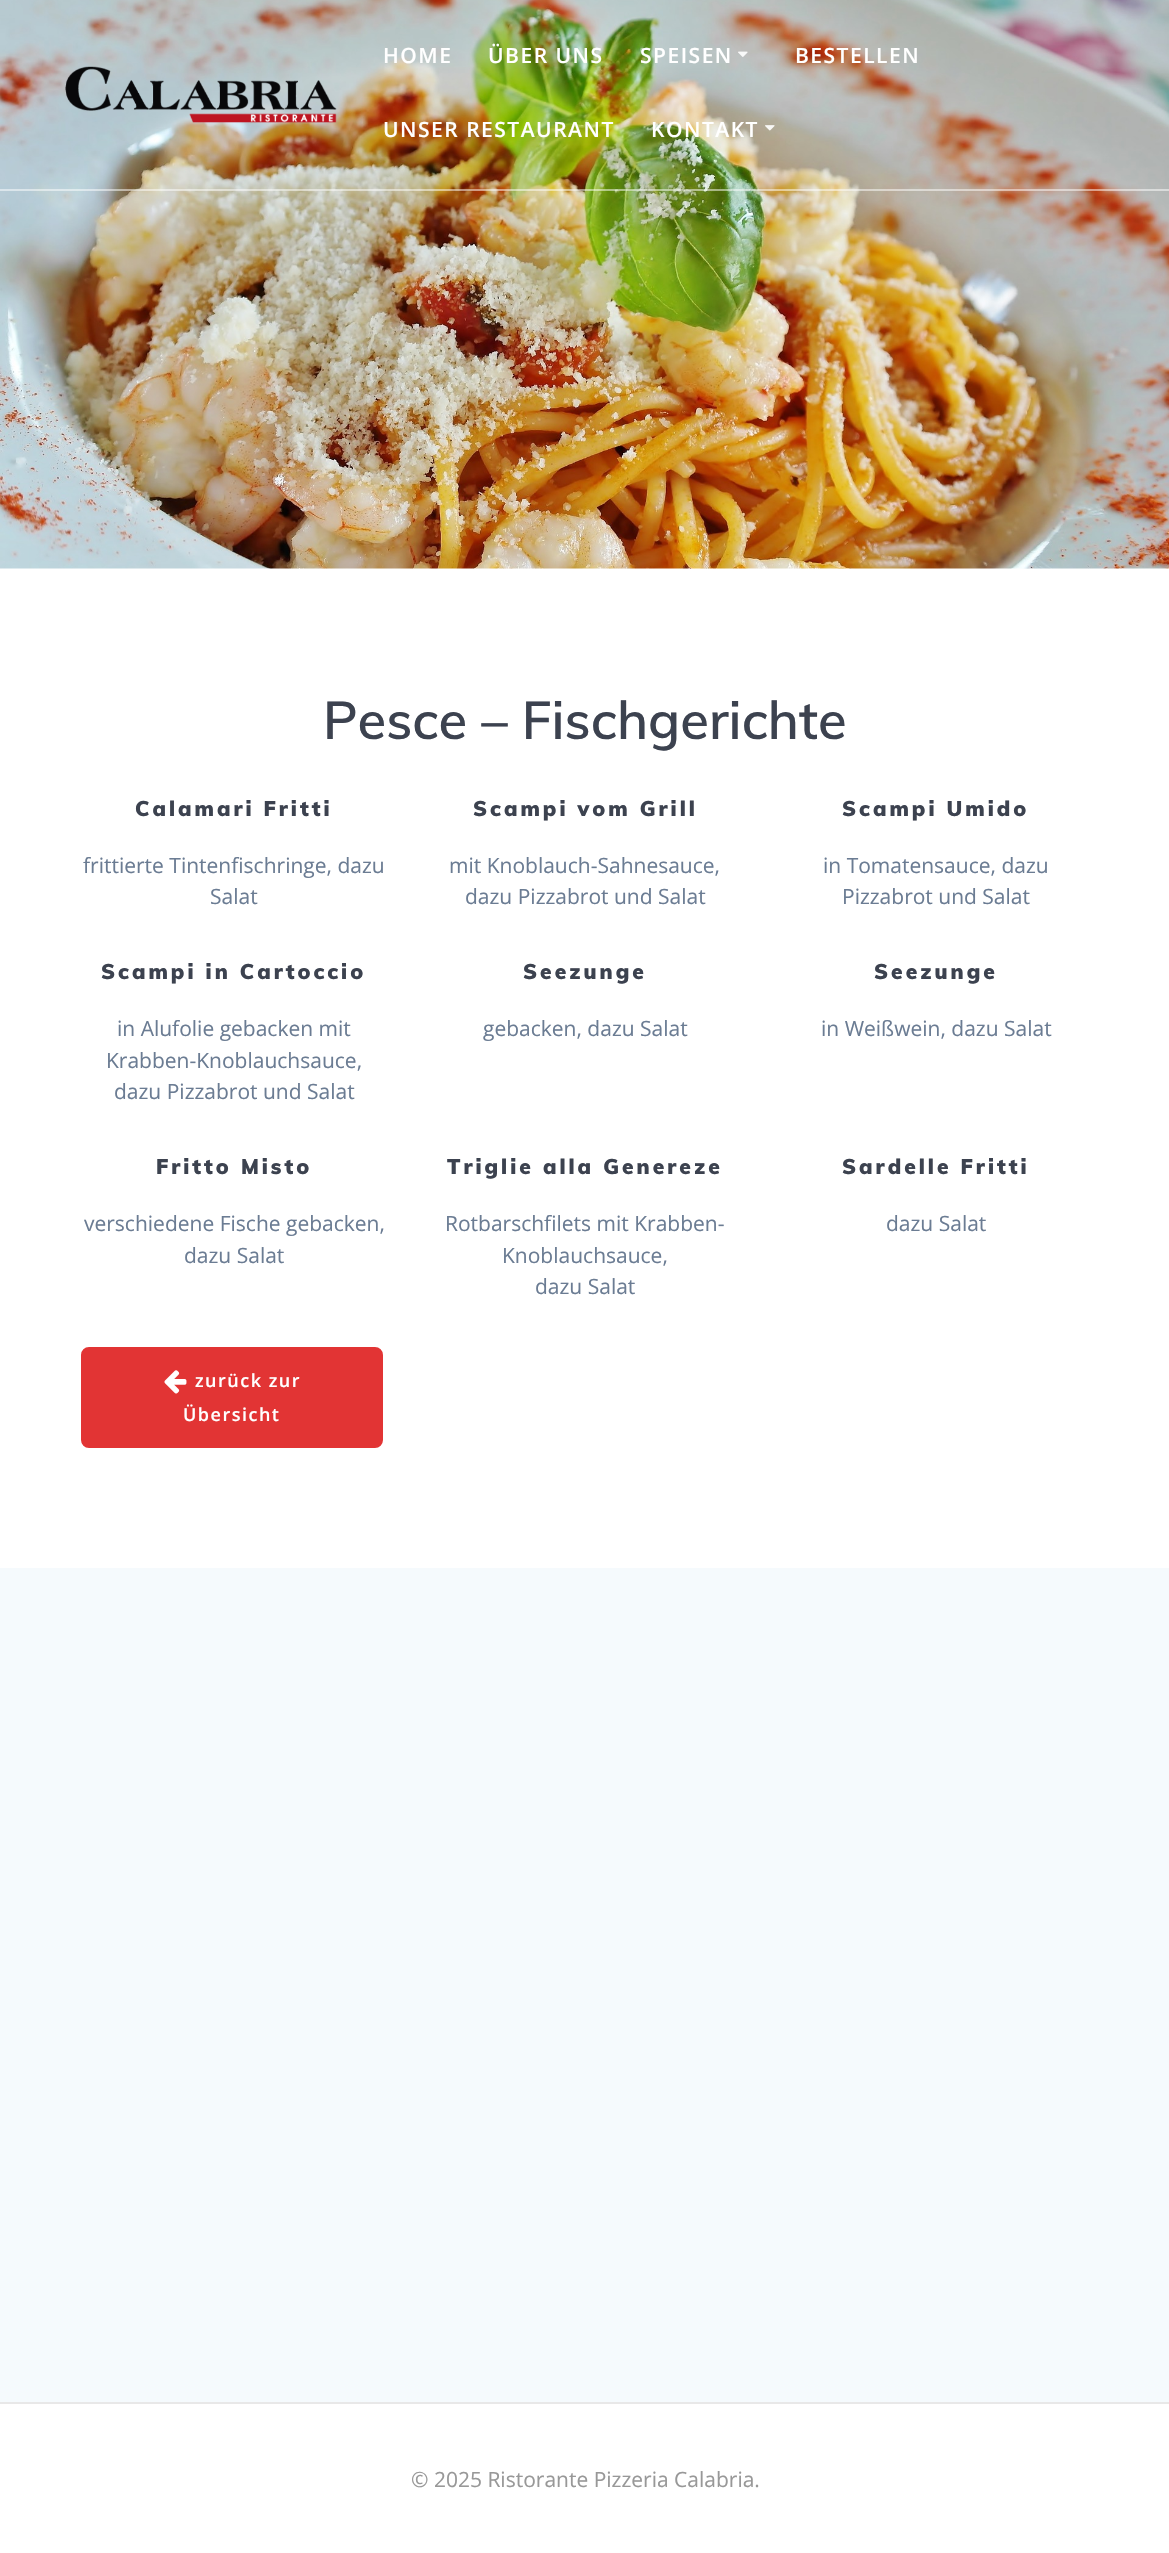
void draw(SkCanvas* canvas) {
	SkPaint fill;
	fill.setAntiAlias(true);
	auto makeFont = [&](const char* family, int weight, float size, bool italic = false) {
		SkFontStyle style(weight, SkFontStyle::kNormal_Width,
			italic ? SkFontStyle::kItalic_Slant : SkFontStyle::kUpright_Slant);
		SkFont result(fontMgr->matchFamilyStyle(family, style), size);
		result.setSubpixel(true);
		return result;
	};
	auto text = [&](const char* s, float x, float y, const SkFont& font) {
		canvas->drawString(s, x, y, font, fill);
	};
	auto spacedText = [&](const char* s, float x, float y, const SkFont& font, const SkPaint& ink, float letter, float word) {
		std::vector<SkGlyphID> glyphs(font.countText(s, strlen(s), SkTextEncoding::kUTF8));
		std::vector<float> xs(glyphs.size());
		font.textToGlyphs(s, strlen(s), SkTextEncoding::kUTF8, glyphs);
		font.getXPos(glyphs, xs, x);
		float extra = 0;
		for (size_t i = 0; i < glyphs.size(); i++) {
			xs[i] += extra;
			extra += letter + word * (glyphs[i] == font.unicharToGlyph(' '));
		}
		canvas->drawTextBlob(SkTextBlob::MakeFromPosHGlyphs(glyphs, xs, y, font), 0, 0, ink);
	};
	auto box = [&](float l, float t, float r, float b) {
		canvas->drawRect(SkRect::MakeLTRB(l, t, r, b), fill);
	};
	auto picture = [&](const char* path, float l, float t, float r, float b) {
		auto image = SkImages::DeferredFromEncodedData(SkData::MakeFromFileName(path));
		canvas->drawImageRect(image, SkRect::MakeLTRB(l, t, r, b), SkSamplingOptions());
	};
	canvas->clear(0xFFFFFFFF);
	picture("image3.png", 0, 0, 1169, 569);
	fill.setColor(0x80FFFFFF);
	box(0, 189, 1169, 191);
	picture("image0.png", 65, 66, 337, 123);
	picture("image1.png", 738, 51, 748, 57);
	picture("image2.png", 765, 125, 775, 131);
	fill.setColor(0xFFF5FAFD);
	box(0, 1568, 1169, 2402);
	fill.setColor(0xFFE23434);
	canvas->drawRoundRect(SkRect::MakeLTRB(82.5f, 1348.5f, 381.5f, 1446.5f), 6.5f, 6.5f, fill);
	fill.setStyle(SkPaint::kStroke_Style);
	fill.setStrokeWidth(3);
	canvas->drawRoundRect(SkRect::MakeLTRB(82.5f, 1348.5f, 381.5f, 1446.5f), 6.5f, 6.5f, fill);
	picture("image4.png", 164, 1370, 187, 1394);
	fill.setStyle(SkPaint::kFill_Style);
	fill.setColor(0xFFE8E8E8);
	box(0, 2402, 1169, 2404);
	auto font1 = makeFont("Open Sans", 600, 21);
	fill.setColor(0xFFFFFFFF);
	spacedText("HOME", 383, 63, font1, fill, 1.5f, 0);
	spacedText("ÜBER UNS", 488, 63, font1, fill, 1.5f, 0);
	spacedText("SPEISEN", 640, 63, font1, fill, 1.5f, 0);
	spacedText("BESTELLEN", 795, 63, font1, fill, 1.5f, 0);
	spacedText("UNSER RESTAURANT", 383, 137, font1, fill, 1.5f, 0);
	spacedText("KONTAKT", 651, 137, font1, fill, 1.5f, 0);
	auto font2 = makeFont("Muli", 600, 52.5f);
	fill.setColor(0xFF3C424F);
	text("Pesce – Fischgerichte", 323, 739, font2);
	auto font3 = makeFont("Muli", 900, 21);
	spacedText("Calamari Fritti", 135, 816, font3, fill, 3, 0);
	auto font4 = makeFont("Open Sans", 400, 21);
	fill.setColor(0xFF6B7C93);
	text("frittierte Tintenfischringe, dazu", 83, 873, font4);
	text("Salat", 210, 904, font4);
	fill.setColor(0xFF3C424F);
	spacedText("Scampi vom Grill", 473, 816, font3, fill, 3, 0);
	fill.setColor(0xFF6B7C93);
	text("mit Knoblauch-Sahnesauce,", 449, 873, font4);
	text("dazu Pizzabrot und Salat", 465, 904, font4);
	fill.setColor(0xFF3C424F);
	spacedText("Scampi Umido", 842, 816, font3, fill, 3, 0);
	fill.setColor(0xFF6B7C93);
	text("in Tomatensauce, dazu", 823, 873, font4);
	text("Pizzabrot und Salat", 842, 904, font4);
	fill.setColor(0xFF3C424F);
	spacedText("Scampi in Cartoccio", 101, 979, font3, fill, 3, 0);
	fill.setColor(0xFF6B7C93);
	text("in Alufolie gebacken mit", 117, 1036, font4);
	text("Krabben-Knoblauchsauce,", 106, 1068, font4);
	text("dazu Pizzabrot und Salat", 114, 1099, font4);
	fill.setColor(0xFF3C424F);
	spacedText("Seezunge", 523, 979, font3, fill, 3, 0);
	fill.setColor(0xFF6B7C93);
	text("gebacken, dazu Salat", 483, 1036, font4);
	fill.setColor(0xFF3C424F);
	spacedText("Seezunge", 874, 979, font3, fill, 3, 0);
	fill.setColor(0xFF6B7C93);
	text("in Weißwein, dazu Salat", 821, 1036, font4);
	fill.setColor(0xFF3C424F);
	spacedText("Fritto Misto", 156, 1174, font3, fill, 3, 0);
	fill.setColor(0xFF6B7C93);
	text("verschiedene Fische gebacken,", 84, 1231, font4);
	text("dazu Salat", 184, 1263, font4);
	fill.setColor(0xFF3C424F);
	spacedText("Triglie alla Genereze", 447, 1174, font3, fill, 3, 0);
	fill.setColor(0xFF6B7C93);
	text("Rotbarschfilets mit Krabben-", 445, 1231, font4);
	text("Knoblauchsauce,", 502, 1263, font4);
	text("dazu Salat", 535, 1294, font4);
	fill.setColor(0xFF3C424F);
	spacedText("Sardelle Fritti", 842, 1174, font3, fill, 3, 0);
	fill.setColor(0xFF6B7C93);
	text("dazu Salat", 886, 1231, font4);
	auto font5 = makeFont("Open Sans", 600, 18);
	fill.setColor(0xFFFFFFFF);
	spacedText("zurück zur", 195, 1387, font5, fill, 1.5f, 0);
	spacedText("Übersicht", 183, 1421, font5, fill, 1.5f, 0);
	fill.setColor(0xFF989898);
	text("© 2025 Ristorante Pizzeria Calabria.", 411, 2487, font4);
}
